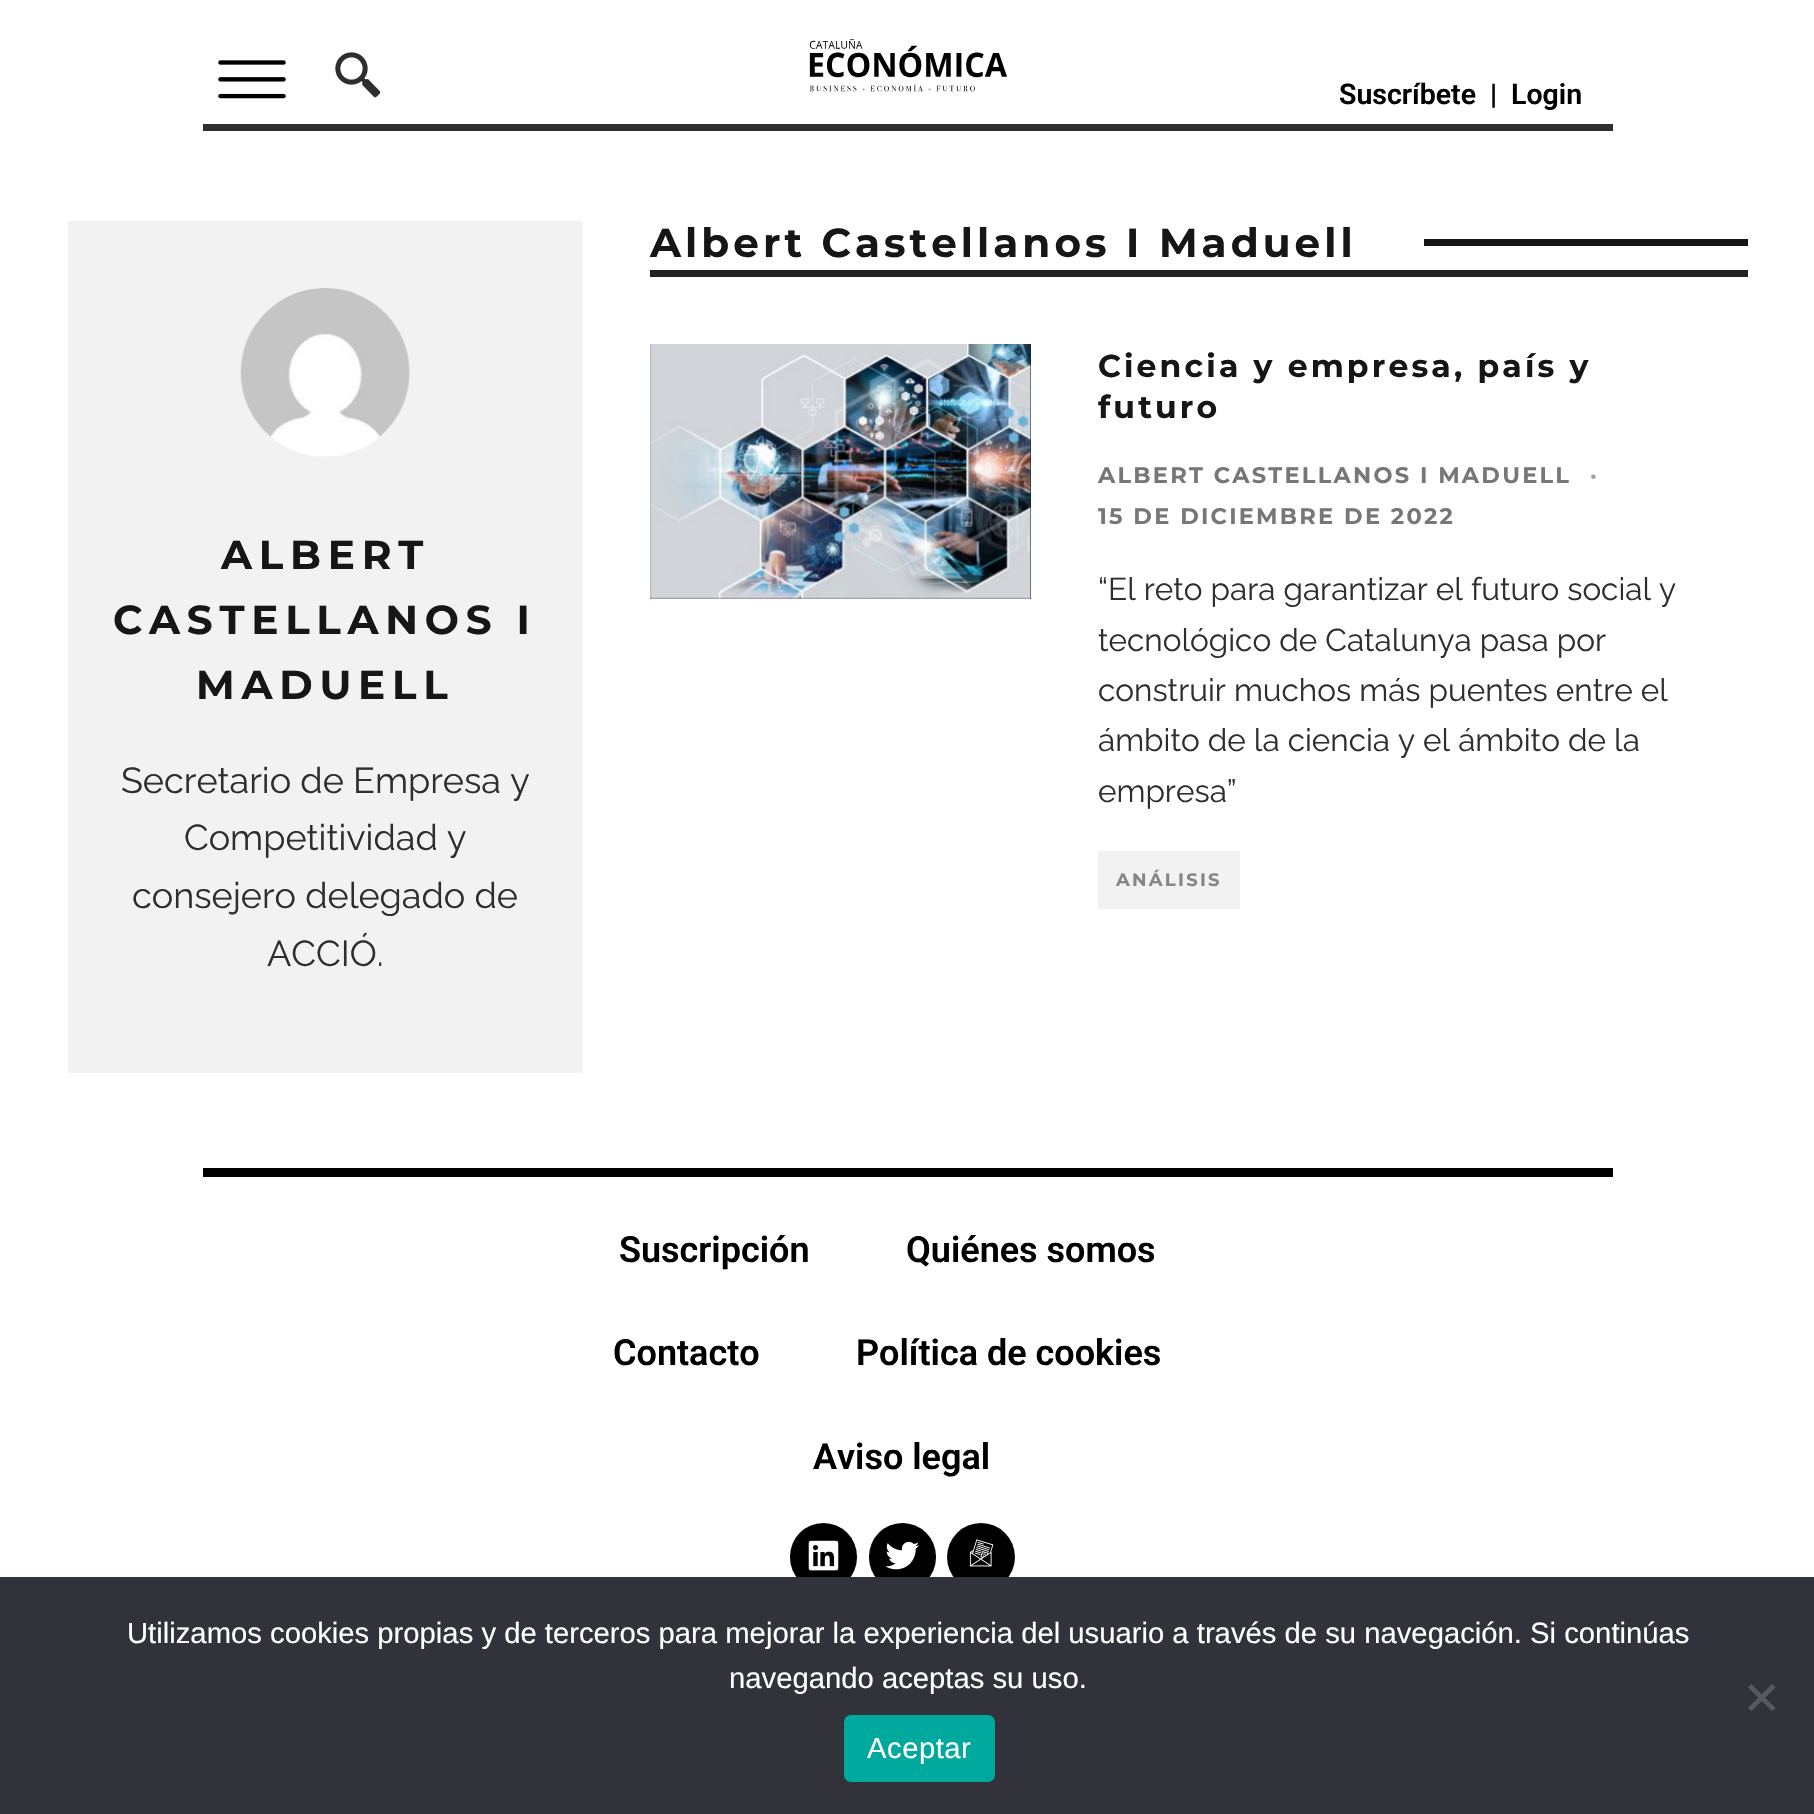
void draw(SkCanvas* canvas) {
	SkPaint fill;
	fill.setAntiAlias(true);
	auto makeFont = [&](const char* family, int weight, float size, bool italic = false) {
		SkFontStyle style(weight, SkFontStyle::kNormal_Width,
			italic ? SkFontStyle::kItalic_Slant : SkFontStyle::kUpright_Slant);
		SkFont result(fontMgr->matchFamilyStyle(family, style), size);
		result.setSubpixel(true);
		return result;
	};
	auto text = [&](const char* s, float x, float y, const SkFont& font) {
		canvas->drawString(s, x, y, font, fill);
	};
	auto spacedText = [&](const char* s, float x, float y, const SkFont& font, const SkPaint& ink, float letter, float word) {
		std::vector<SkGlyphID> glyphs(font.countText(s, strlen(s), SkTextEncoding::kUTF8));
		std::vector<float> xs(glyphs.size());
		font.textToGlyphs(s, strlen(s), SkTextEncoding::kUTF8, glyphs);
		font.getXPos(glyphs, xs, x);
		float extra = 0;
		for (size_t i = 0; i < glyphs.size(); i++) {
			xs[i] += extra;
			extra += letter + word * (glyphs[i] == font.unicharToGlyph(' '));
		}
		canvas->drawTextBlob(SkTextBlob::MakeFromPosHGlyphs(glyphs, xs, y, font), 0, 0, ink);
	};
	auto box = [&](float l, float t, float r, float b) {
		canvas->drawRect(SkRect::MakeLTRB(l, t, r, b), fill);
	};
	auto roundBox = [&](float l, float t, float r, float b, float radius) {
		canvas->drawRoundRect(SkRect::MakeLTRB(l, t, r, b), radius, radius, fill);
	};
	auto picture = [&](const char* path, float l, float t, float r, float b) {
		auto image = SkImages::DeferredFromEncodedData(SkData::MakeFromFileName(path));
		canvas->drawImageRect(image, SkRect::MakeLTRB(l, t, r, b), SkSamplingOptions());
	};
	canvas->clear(0xFFFFFFFF);
	fill.setColor(0xFF2E2E2E);
	box(203, 124, 1613, 131);
	picture("image0.png", 218, 60, 286, 99);
	picture("image1.png", 335, 52, 381, 98);
	picture("image2.png", 809, 39, 1007, 92);
	fill.setColor(0xFFF2F2F2);
	box(68, 221, 583, 1073);
	picture("image3.png", 240, 288, 410, 457);
	fill.setColor(0xFF222222);
	box(650, 270, 1748, 277);
	fill.setColor(0xFF161616);
	box(1424, 239, 1748, 246);
	fill.setColor(0xFF222222);
	box(650, 344, 1031, 599);
	picture("image4.png", 650, 344, 1031, 599);
	fill.setColor(0xFFF2F2F2);
	box(1098, 851, 1240, 909);
	fill.setColor(0xFF000000);
	box(203, 1168, 1613, 1177);
	roundBox(790, 1523, 857, 1591, 33.5f);
	picture("image5.png", 808, 1540, 839, 1571);
	roundBox(869, 1523, 936, 1591, 33.5f);
	picture("image6.png", 885, 1541, 919, 1570);
	canvas->drawCircle(981, 1557, 34, fill);
	picture("image7.png", 969, 1539, 994, 1567);
	fill.setColor(0xFF32323A);
	box(0, 1577, 1814, 1814);
	fill.setColor(0xFF59595D);
	canvas->drawPath(SkPathBuilder().moveTo(1772, 1684).lineTo(1775.5f, 1687.5f).lineTo(1751.5f, 1711).lineTo(1748, 1708).close().detach(), fill);
	canvas->drawPath(SkPathBuilder().moveTo(1748, 1687.5f).lineTo(1751.5f, 1684).lineTo(1775.5f, 1708).lineTo(1772, 1711).close().detach(), fill);
	fill.setColor(0xFF00A99D);
	roundBox(844, 1715, 995, 1782, 7);
	auto font1 = makeFont("Roboto", 600, 28.5f);
	fill.setColor(0xFF000000);
	text("Suscríbete", 1339, 104, font1);
	text("|", 1490, 104, font1);
	text("Login", 1511, 104, font1);
	auto font2 = makeFont("Montserrat", 700, 40.5f);
	fill.setColor(0xFF161616);
	spacedText("ALBERT", 221, 569, font2, fill, 6.75f, 0);
	spacedText("CASTELLANOS I", 113, 634, font2, fill, 6.75f, 0);
	spacedText("MADUELL", 196, 699, font2, fill, 6.75f, 0);
	auto font3 = makeFont("Raleway", 400, 36);
	fill.setColor(0xFF2E2E2E);
	text("Secretario de Empresa y", 121, 793, font3);
	text("Competitividad y", 184, 850, font3);
	text("consejero delegado de", 132, 908, font3);
	text("ACCIÓ.", 267, 966, font3);
	fill.setColor(0xFF161616);
	spacedText("Albert Castellanos I Maduell", 650, 257, font2, fill, 4.05f, 0);
	auto font4 = makeFont("Montserrat", 700, 31.5f);
	spacedText("Ciencia y empresa, país y", 1098, 377, font4, fill, 3.15f, 0);
	spacedText("futuro", 1098, 418, font4, fill, 3.15f, 0);
	auto font5 = makeFont("Montserrat", 700, 22.5f);
	fill.setColor(0xFF777777);
	spacedText("ALBERT CASTELLANOS I MADUELL", 1098, 483, font5, fill, 2.25f, 0);
	fill.setColor(0xFFA0A0A0);
	spacedText("·", 1590, 483, font5, fill, 2.25f, 0);
	fill.setColor(0xFF777777);
	spacedText("15 DE DICIEMBRE DE 2022", 1098, 524, font5, fill, 2.25f, 0);
	auto font6 = makeFont("Raleway", 400, 31.5f);
	fill.setColor(0xFF2E2E2E);
	text("“El reto para garantizar el futuro social y", 1098, 600, font6);
	text("tecnológico de Catalunya pasa por", 1098, 651, font6);
	text("construir muchos más puentes entre el", 1098, 701, font6);
	text("ámbito de la ciencia y el ámbito de la", 1098, 751, font6);
	text("empresa”", 1098, 802, font6);
	auto font7 = makeFont("Montserrat", 700, 18);
	fill.setColor(0xFF868686);
	spacedText("ANÁLISIS", 1116, 886, font7, fill, 2.25f, 0);
	auto font8 = makeFont("Roboto", 600, 36);
	fill.setColor(0xFF000000);
	text("Suscripción", 619, 1262, font8);
	text("Quiénes somos", 906, 1262, font8);
	text("Contacto", 613, 1365, font8);
	text("Política de cookies", 856, 1365, font8);
	text("Aviso legal", 813, 1469, font8);
	auto font9 = makeFont("Liberation Sans", 400, 29.25f);
	fill.setColor(0xFFFFFFFF);
	text("Utilizamos cookies propias y de terceros para mejorar la experiencia del usuario a través de su navegación. Si continúas", 127, 1643, font9);
	text("navegando aceptas su uso.", 729, 1688, font9);
	spacedText("Aceptar", 867, 1758, font9, fill, 0.5f, 0);
}
